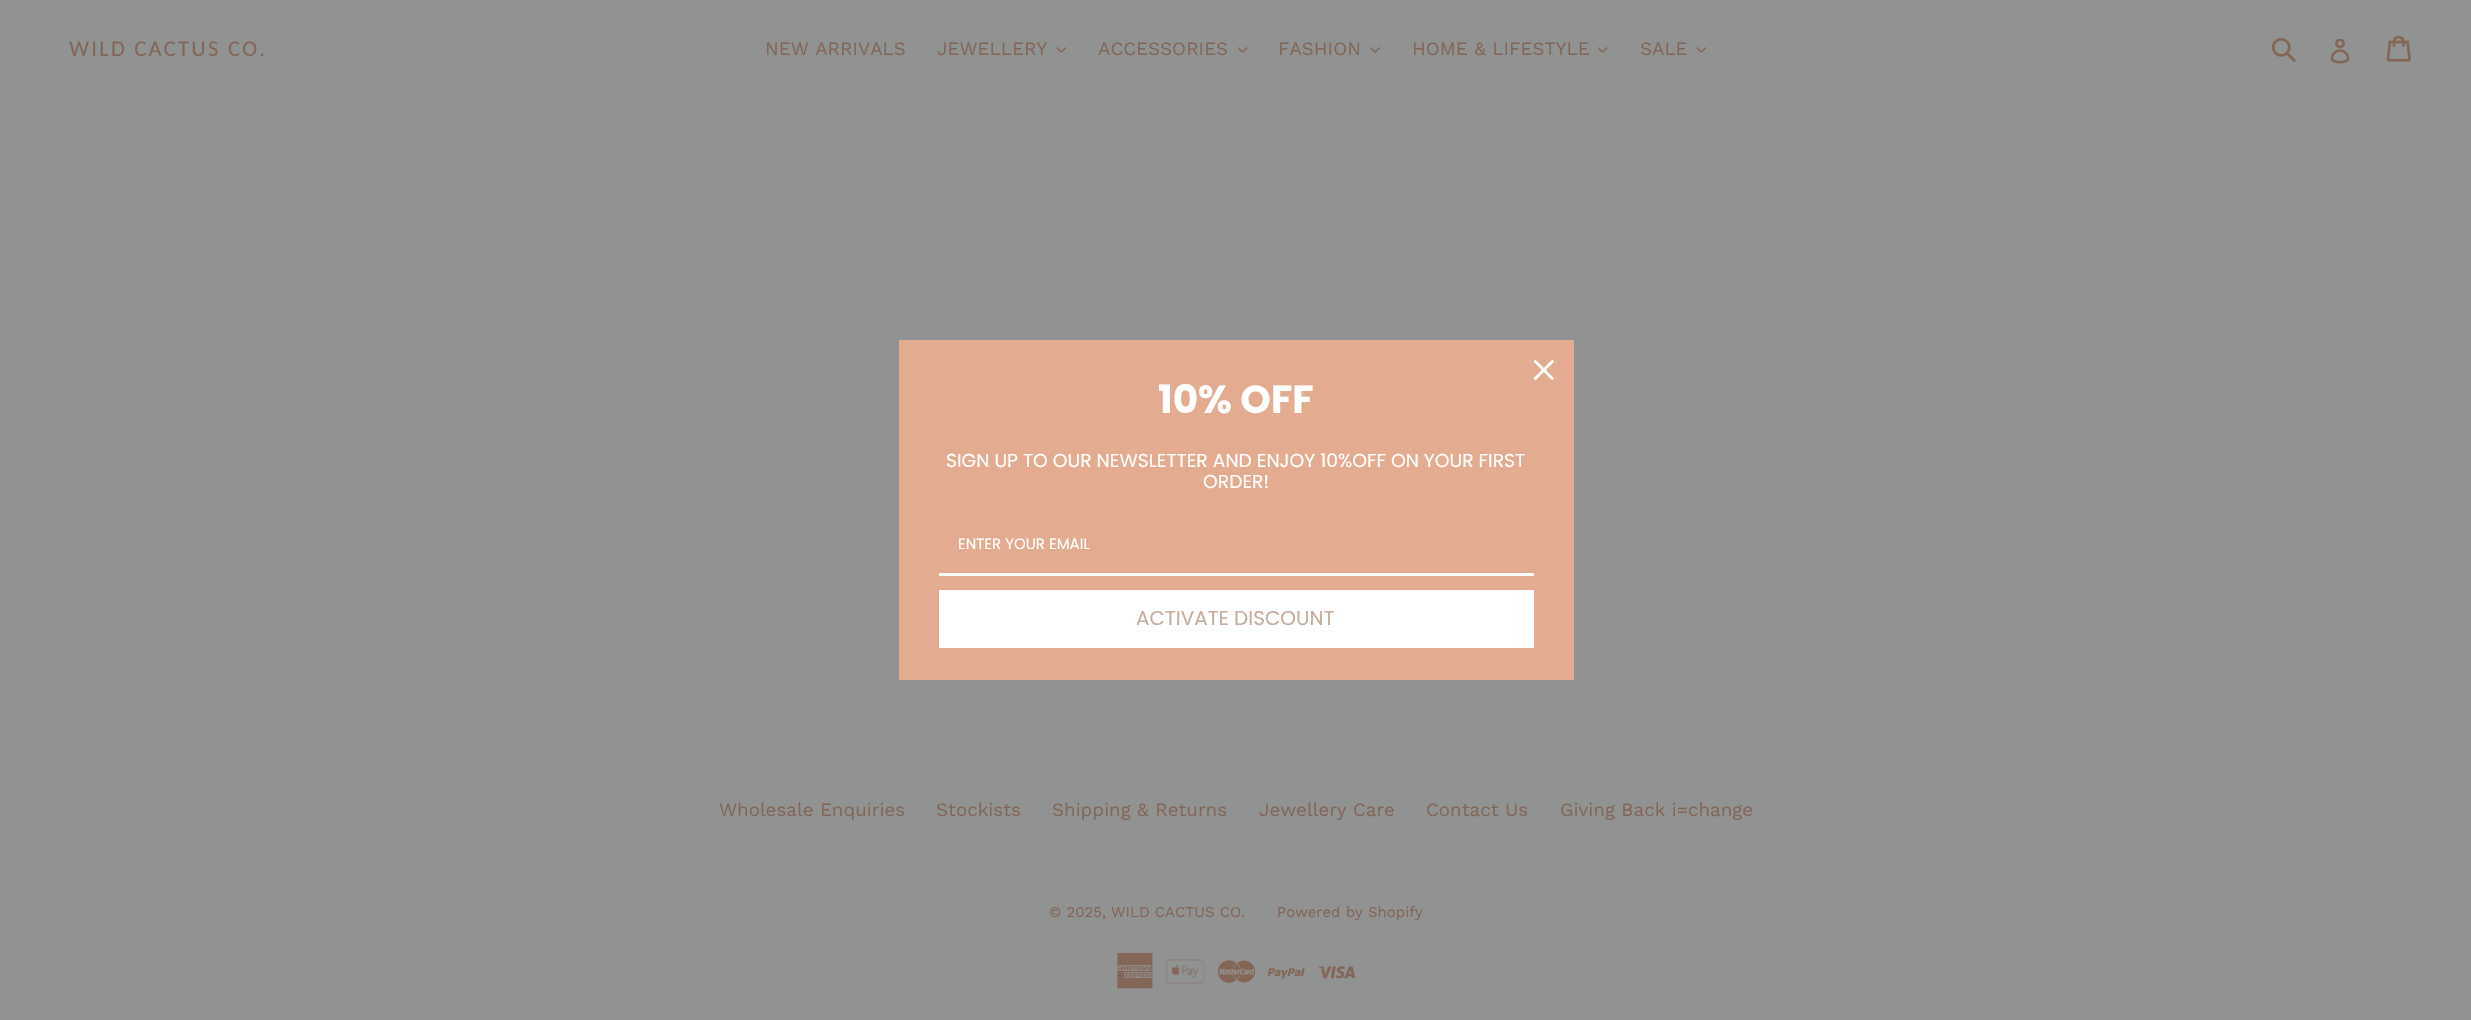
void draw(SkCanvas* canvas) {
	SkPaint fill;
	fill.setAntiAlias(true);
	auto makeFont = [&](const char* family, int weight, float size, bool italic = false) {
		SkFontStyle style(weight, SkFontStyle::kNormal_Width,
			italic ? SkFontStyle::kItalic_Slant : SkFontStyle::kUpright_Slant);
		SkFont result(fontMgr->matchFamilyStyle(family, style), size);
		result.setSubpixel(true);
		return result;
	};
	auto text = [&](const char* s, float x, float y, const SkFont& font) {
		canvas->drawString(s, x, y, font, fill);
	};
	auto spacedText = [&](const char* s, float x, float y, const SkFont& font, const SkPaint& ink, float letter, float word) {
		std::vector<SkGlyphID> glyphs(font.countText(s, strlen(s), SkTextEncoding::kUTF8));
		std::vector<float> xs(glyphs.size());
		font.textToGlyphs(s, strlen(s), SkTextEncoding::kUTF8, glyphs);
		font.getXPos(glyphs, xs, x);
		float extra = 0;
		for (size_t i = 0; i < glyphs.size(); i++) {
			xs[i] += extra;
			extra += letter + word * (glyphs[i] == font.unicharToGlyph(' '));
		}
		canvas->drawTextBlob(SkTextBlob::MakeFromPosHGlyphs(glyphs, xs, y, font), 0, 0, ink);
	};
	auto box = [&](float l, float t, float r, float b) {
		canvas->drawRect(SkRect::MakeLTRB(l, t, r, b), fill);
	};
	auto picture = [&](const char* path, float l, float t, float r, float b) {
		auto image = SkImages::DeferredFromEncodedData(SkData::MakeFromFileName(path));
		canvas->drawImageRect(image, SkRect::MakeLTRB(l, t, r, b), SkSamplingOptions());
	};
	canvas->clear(0xFF919292);
	picture("image0.png", 1056, 47, 1066, 53);
	picture("image1.png", 1238, 47, 1248, 53);
	picture("image2.png", 1370, 47, 1380, 53);
	picture("image1.png", 1598, 47, 1608, 53);
	picture("image0.png", 1696, 47, 1706, 53);
	picture("image3.png", 2271, 38, 2296, 62);
	picture("image4.png", 2330, 39, 2350, 64);
	picture("image5.png", 2386, 35, 2411, 62);
	fill.setColor(0xFFE3AB8F);
	box(899, 340, 1574, 680);
	picture("image6.png", 1534, 360, 1554, 380);
	fill.setColor(0xFFFFFFFF);
	box(939, 573, 1534, 576);
	box(939, 590, 1534, 648);
	picture("image7.png", 1117, 953, 1153, 989);
	picture("image8.png", 1166, 959, 1205, 984);
	picture("image9.png", 1218, 960, 1255, 983);
	picture("image10.png", 1268, 968, 1305, 979);
	picture("image11.png", 1318, 966, 1355, 979);
	auto font1 = makeFont("Carlito", 400, 22.5f);
	fill.setColor(0xFF836656);
	spacedText("WILD CACTUS CO.", 69, 56, font1, fill, 2.25f, 0);
	auto font2 = makeFont("Work Sans", 400, 18.75f);
	text("NEW ARRIVALS", 765, 55, font2);
	text("JEWELLERY", 937, 55, font2);
	text("ACCESSORIES", 1098, 55, font2);
	text("FASHION", 1278, 55, font2);
	text("HOME & LIFESTYLE", 1412, 55, font2);
	text("SALE", 1640, 55, font2);
	auto font3 = makeFont("Poppins", 700, 39);
	fill.setColor(0xFFFFFFFF);
	text("10% OFF", 1158, 413, font3);
	auto font4 = makeFont("Poppins", 400, 18.75f);
	text("SIGN UP TO OUR NEWSLETTER AND ENJOY 10%OFF ON YOUR FIRST", 946, 467, font4);
	text("ORDER!", 1203, 488, font4);
	auto font5 = makeFont("Poppins", 400, 15);
	text("ENTER YOUR EMAIL", 958, 549, font5);
	auto font6 = makeFont("Poppins", 400, 20);
	fill.setColor(0xFFC7AC9D);
	text("ACTIVATE DISCOUNT", 1136, 625, font6);
	fill.setColor(0xFF836656);
	text("Wholesale Enquiries", 719, 816, font2);
	text("Stockists", 936, 816, font2);
	text("Shipping & Returns", 1052, 816, font2);
	text("Jewellery Care", 1259, 816, font2);
	text("Contact Us", 1426, 816, font2);
	text("Giving Back i=change", 1560, 816, font2);
	auto font7 = makeFont("Work Sans", 400, 15);
	text("© 2025, WILD CACTUS CO.", 1049, 917, font7);
	text("Powered by Shopify", 1277, 917, font7);
}
